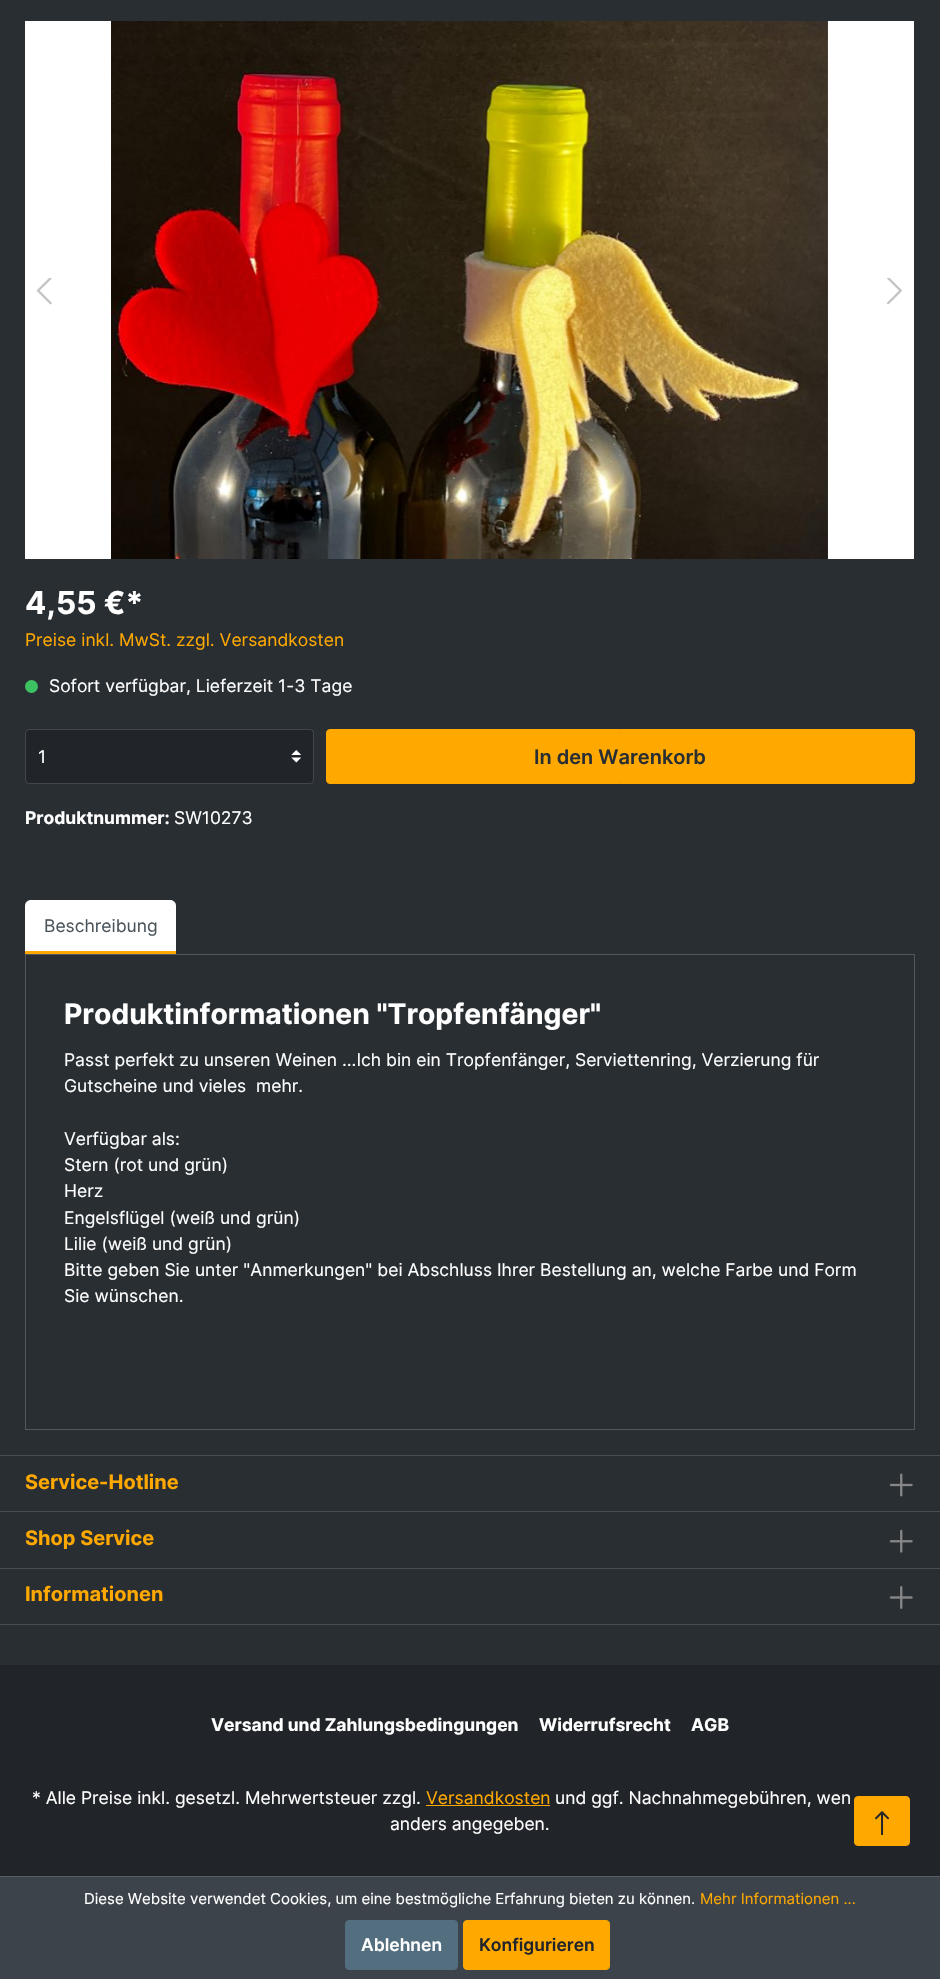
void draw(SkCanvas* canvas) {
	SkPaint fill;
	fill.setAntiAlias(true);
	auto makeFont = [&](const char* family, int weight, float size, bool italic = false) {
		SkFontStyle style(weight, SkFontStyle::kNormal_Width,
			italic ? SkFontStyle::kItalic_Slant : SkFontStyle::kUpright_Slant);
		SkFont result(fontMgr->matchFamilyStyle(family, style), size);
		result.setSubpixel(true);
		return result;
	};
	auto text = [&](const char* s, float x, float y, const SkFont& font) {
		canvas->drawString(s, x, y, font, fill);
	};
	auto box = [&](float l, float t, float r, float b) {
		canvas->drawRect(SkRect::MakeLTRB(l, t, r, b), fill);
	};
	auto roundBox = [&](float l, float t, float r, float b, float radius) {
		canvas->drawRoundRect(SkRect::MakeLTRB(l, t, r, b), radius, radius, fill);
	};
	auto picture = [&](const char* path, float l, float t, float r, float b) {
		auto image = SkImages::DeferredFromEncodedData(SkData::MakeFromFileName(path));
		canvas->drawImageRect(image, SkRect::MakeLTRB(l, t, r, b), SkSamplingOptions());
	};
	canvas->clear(0xFF292E33);
	fill.setColor(0xFFFFFFFF);
	box(25, 21, 914, 559);
	picture("image0.png", 111, 21, 828, 559);
	picture("image1.png", 36, 278, 52, 305);
	picture("image2.png", 887, 278, 902, 305);
	fill.setColor(0xFF3CC261);
	canvas->drawCircle(31.5f, 686.5f, 6.5f, fill);
	fill.setColor(0xFF212529);
	roundBox(25, 729, 314, 784, 4);
	picture("image3.png", 291, 750, 301, 763);
	fill.setStyle(SkPaint::kStroke_Style);
	fill.setStrokeWidth(1);
	fill.setColor(0x26FFFFFF);
	canvas->drawRoundRect(SkRect::MakeLTRB(25.5f, 729.5f, 313.5f, 783.5f), 3.5f, 3.5f, fill);
	fill.setStyle(SkPaint::kFill_Style);
	fill.setColor(0xFFFEA800);
	canvas->drawRoundRect(SkRect::MakeLTRB(326.5f, 729.5f, 914.5f, 783.5f), 3.5f, 3.5f, fill);
	fill.setStyle(SkPaint::kStroke_Style);
	canvas->drawRoundRect(SkRect::MakeLTRB(326.5f, 729.5f, 914.5f, 783.5f), 3.5f, 3.5f, fill);
	fill.setStyle(SkPaint::kFill_Style);
	fill.setColor(0xFFFFFFFF);
	canvas->drawPath(SkPathBuilder().moveTo(31, 900).lineTo(170, 900).cubicTo(173.5f, 900, 176, 902.5f, 176, 906).lineTo(176, 954).lineTo(25, 954).lineTo(25, 906).cubicTo(25, 902.5f, 27.5f, 900, 31, 900).close().detach(), fill);
	fill.setColor(0xFFFEA800);
	box(25, 951, 176, 954);
	fill.setStyle(SkPaint::kStroke_Style);
	fill.setColor(0xFF54585C);
	canvas->drawRect(SkRect::MakeLTRB(25.5f, 954.5f, 914.5f, 1429.5f), fill);
	fill.setStyle(SkPaint::kFill_Style);
	fill.setColor(0xFF494D52);
	box(0, 1455, 940, 1456);
	box(0, 1511, 940, 1512);
	picture("image4.png", 889, 1473, 913, 1497);
	box(0, 1568, 940, 1569);
	picture("image5.png", 889, 1529, 913, 1553);
	box(0, 1624, 940, 1625);
	picture("image6.png", 889, 1586, 913, 1609);
	fill.setColor(0xFF212529);
	box(0, 1665, 940, 1876);
	fill.setColor(0xFFFEA800);
	box(426, 1805, 550, 1806);
	canvas->drawRoundRect(SkRect::MakeLTRB(854.5f, 1796.5f, 909.5f, 1845.5f), 3.5f, 3.5f, fill);
	fill.setStyle(SkPaint::kStroke_Style);
	canvas->drawRoundRect(SkRect::MakeLTRB(854.5f, 1796.5f, 909.5f, 1845.5f), 3.5f, 3.5f, fill);
	picture("image7.png", 875, 1811, 889, 1835);
	fill.setStyle(SkPaint::kFill_Style);
	fill.setColor(0xFF3C434A);
	box(0, 1877, 940, 1979);
	fill.setColor(0xFF595F65);
	box(0, 1876, 940, 1877);
	fill.setColor(0xFF526E7F);
	canvas->drawRoundRect(SkRect::MakeLTRB(345.5f, 1920.5f, 457.5f, 1969.5f), 3.5f, 3.5f, fill);
	fill.setStyle(SkPaint::kStroke_Style);
	canvas->drawRoundRect(SkRect::MakeLTRB(345.5f, 1920.5f, 457.5f, 1969.5f), 3.5f, 3.5f, fill);
	fill.setStyle(SkPaint::kFill_Style);
	fill.setColor(0xFFFEA800);
	canvas->drawRoundRect(SkRect::MakeLTRB(463.5f, 1920.5f, 609.5f, 1969.5f), 3.5f, 3.5f, fill);
	fill.setStyle(SkPaint::kStroke_Style);
	canvas->drawRoundRect(SkRect::MakeLTRB(463.5f, 1920.5f, 609.5f, 1969.5f), 3.5f, 3.5f, fill);
	auto font1 = makeFont("Inter", 700, 31.5f);
	fill.setStyle(SkPaint::kFill_Style);
	fill.setColor(0xFFFFFFFF);
	text("4,55 €*", 25, 614, font1);
	auto font2 = makeFont("Inter", 400, 17.5f);
	fill.setColor(0xFFFEA800);
	text("Preise inkl. MwSt. zzgl. Versandkosten", 25, 646, font2);
	fill.setColor(0xFFFFFFFF);
	text("Sofort verfügbar, Lieferzeit 1-3 Tage", 49, 692, font2);
	text("1", 38, 763, font2);
	auto font3 = makeFont("Inter", 600, 20);
	fill.setColor(0xFF292E33);
	text("In den Warenkorb", 534, 764, font3);
	auto font4 = makeFont("Inter", 700, 17.5f);
	fill.setColor(0xFFFFFFFF);
	text("Produktnummer:", 25, 824, font4);
	text("SW10273", 174, 824, font2);
	fill.setColor(0xFF4A545B);
	text("Beschreibung", 44, 932, font2);
	auto font5 = makeFont("Inter", 700, 28.3f);
	fill.setColor(0xFFFFFFFF);
	text("Produktinformationen \"Tropfenfänger\"", 64, 1024, font5);
	text("Passt perfekt zu unseren Weinen ...Ich bin ein Tropfenfänger, Serviettenring, Verzierung für", 64, 1066, font2);
	text("Gutscheine und vieles  mehr.", 64, 1092, font2);
	text("Verfügbar als:", 64, 1145, font2);
	text("Stern (rot und grün)", 64, 1171, font2);
	text("Herz", 64, 1197, font2);
	text("Engelsflügel (weiß und grün)", 64, 1224, font2);
	text("Lilie (weiß und grün)", 64, 1250, font2);
	text("Bitte geben Sie unter \"Anmerkungen\" bei Abschluss Ihrer Bestellung an, welche Farbe und Form", 64, 1276, font2);
	text("Sie wünschen.", 64, 1302, font2);
	auto font6 = makeFont("Inter", 700, 20);
	fill.setColor(0xFFFEA800);
	text("Service-Hotline", 25, 1489, font6);
	text("Shop Service", 25, 1545, font6);
	text("Informationen", 25, 1601, font6);
	fill.setColor(0xFFFFFFFF);
	text("Versand und Zahlungsbedingungen", 211, 1731, font4);
	text("Widerrufsrecht", 539, 1731, font4);
	text("AGB", 691, 1731, font4);
	text("* Alle Preise inkl. gesetzl. Mehrwertsteuer zzgl.", 32, 1804, font2);
	fill.setColor(0xFFFEA800);
	text("Versandkosten", 426, 1804, font2);
	fill.setColor(0xFFFFFFFF);
	text("und ggf. Nachnahmegebühren, wen", 555, 1804, font2);
	text("anders angegeben.", 390, 1830, font2);
	auto font7 = makeFont("Inter", 400, 15);
	text("Diese Website verwendet Cookies, um eine bestmögliche Erfahrung bieten zu können.", 84, 1904, font7);
	fill.setColor(0xFFFEA800);
	text("Mehr Informationen ...", 700, 1904, font7);
	auto font8 = makeFont("Inter", 600, 17.5f);
	fill.setColor(0xFFFFFFFF);
	text("Ablehnen", 361, 1951, font8);
	fill.setColor(0xFF212529);
	text("Konfigurieren", 479, 1951, font8);
}
